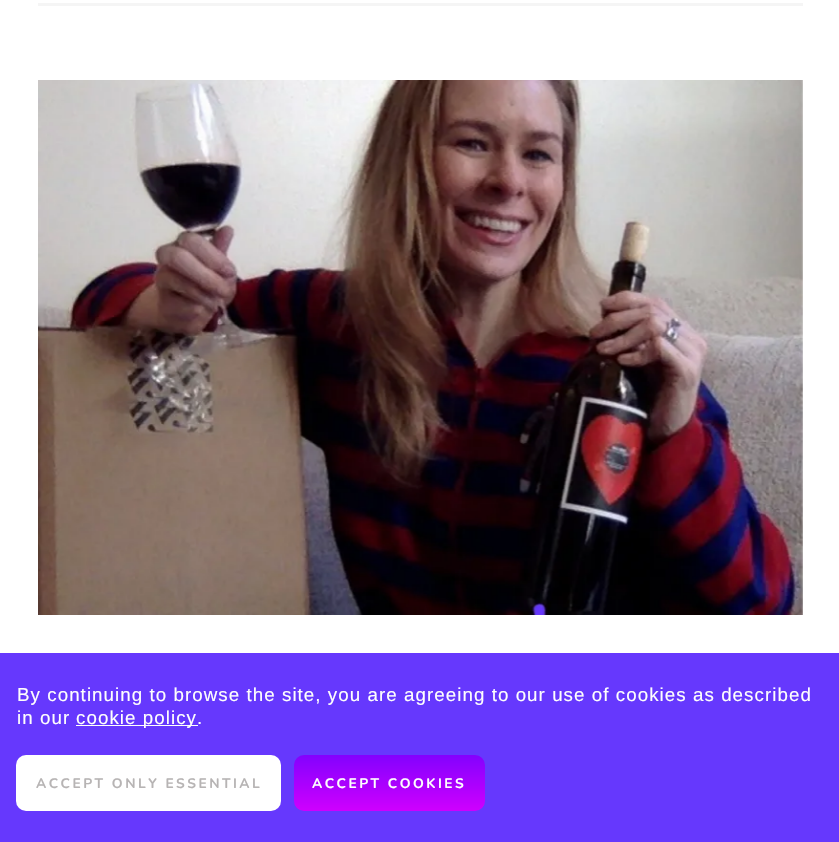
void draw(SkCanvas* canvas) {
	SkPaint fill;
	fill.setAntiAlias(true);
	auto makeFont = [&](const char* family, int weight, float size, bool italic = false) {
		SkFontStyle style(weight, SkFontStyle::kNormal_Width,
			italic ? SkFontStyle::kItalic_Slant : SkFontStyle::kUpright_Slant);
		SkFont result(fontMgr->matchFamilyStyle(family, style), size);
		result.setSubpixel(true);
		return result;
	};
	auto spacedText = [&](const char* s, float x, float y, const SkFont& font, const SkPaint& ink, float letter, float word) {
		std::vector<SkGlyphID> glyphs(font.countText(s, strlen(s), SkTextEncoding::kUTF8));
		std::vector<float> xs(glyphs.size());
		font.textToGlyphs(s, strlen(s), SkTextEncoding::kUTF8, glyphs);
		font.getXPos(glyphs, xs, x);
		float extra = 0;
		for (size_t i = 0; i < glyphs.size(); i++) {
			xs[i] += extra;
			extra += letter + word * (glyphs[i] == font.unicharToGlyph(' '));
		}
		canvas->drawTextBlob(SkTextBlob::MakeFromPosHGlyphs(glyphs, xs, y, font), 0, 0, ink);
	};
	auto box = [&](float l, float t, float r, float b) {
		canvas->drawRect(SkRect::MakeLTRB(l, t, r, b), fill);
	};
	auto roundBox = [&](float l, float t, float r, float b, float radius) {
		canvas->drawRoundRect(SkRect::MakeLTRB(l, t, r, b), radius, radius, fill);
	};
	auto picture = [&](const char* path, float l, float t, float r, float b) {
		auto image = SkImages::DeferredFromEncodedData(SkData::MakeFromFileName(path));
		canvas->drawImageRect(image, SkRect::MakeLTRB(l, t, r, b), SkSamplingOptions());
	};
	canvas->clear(0xFFFFFFFF);
	fill.setColor(0xFFF5F5F5);
	box(38, 3, 803, 6);
	picture("image0.png", 38, 80, 803, 615);
	fill.setColor(0xFF6638FD);
	box(0, 653, 839, 842);
	fill.setColor(0xFFFEFEFE);
	box(76, 725, 198, 726);
	fill.setColor(0xFFFFFFFF);
	roundBox(16, 755, 281, 811, 10);
	{
		const SkColor colors[] = {0xFF8301FE, 0xFFCF00FE};
		const float stops[] = {0, 1};
		const SkPoint ends[] = {{389, 755}, {389, 811}};
		fill.setShader(SkGradientShader::MakeLinear(ends, colors, stops, 2, SkTileMode::kClamp));
		fill.setAlpha(255);
	}
	roundBox(294, 755, 485, 811, 10);
	auto font1 = makeFont("Liberation Sans", 400, 18.75f);
	fill.setShader(nullptr);
	fill.setColor(0xFFFEFEFE);
	spacedText("By continuing to browse the site, you are agreeing to our use of cookies as described", 17, 701, font1, fill, 1.05f, 0);
	spacedText("in our", 17, 724, font1, fill, 1.05f, 0);
	spacedText("cookie policy.", 76, 724, font1, fill, 1.05f, 0);
	auto font2 = makeFont("Nunito", 700, 13.75f);
	fill.setColor(0xFFB7B4B4);
	spacedText("ACCEPT ONLY ESSENTIAL", 36, 788, font2, fill, 2.5f, 0);
	fill.setColor(0xFFFEFEFE);
	spacedText("ACCEPT COOKIES", 312, 788, font2, fill, 2.5f, 0);
}
